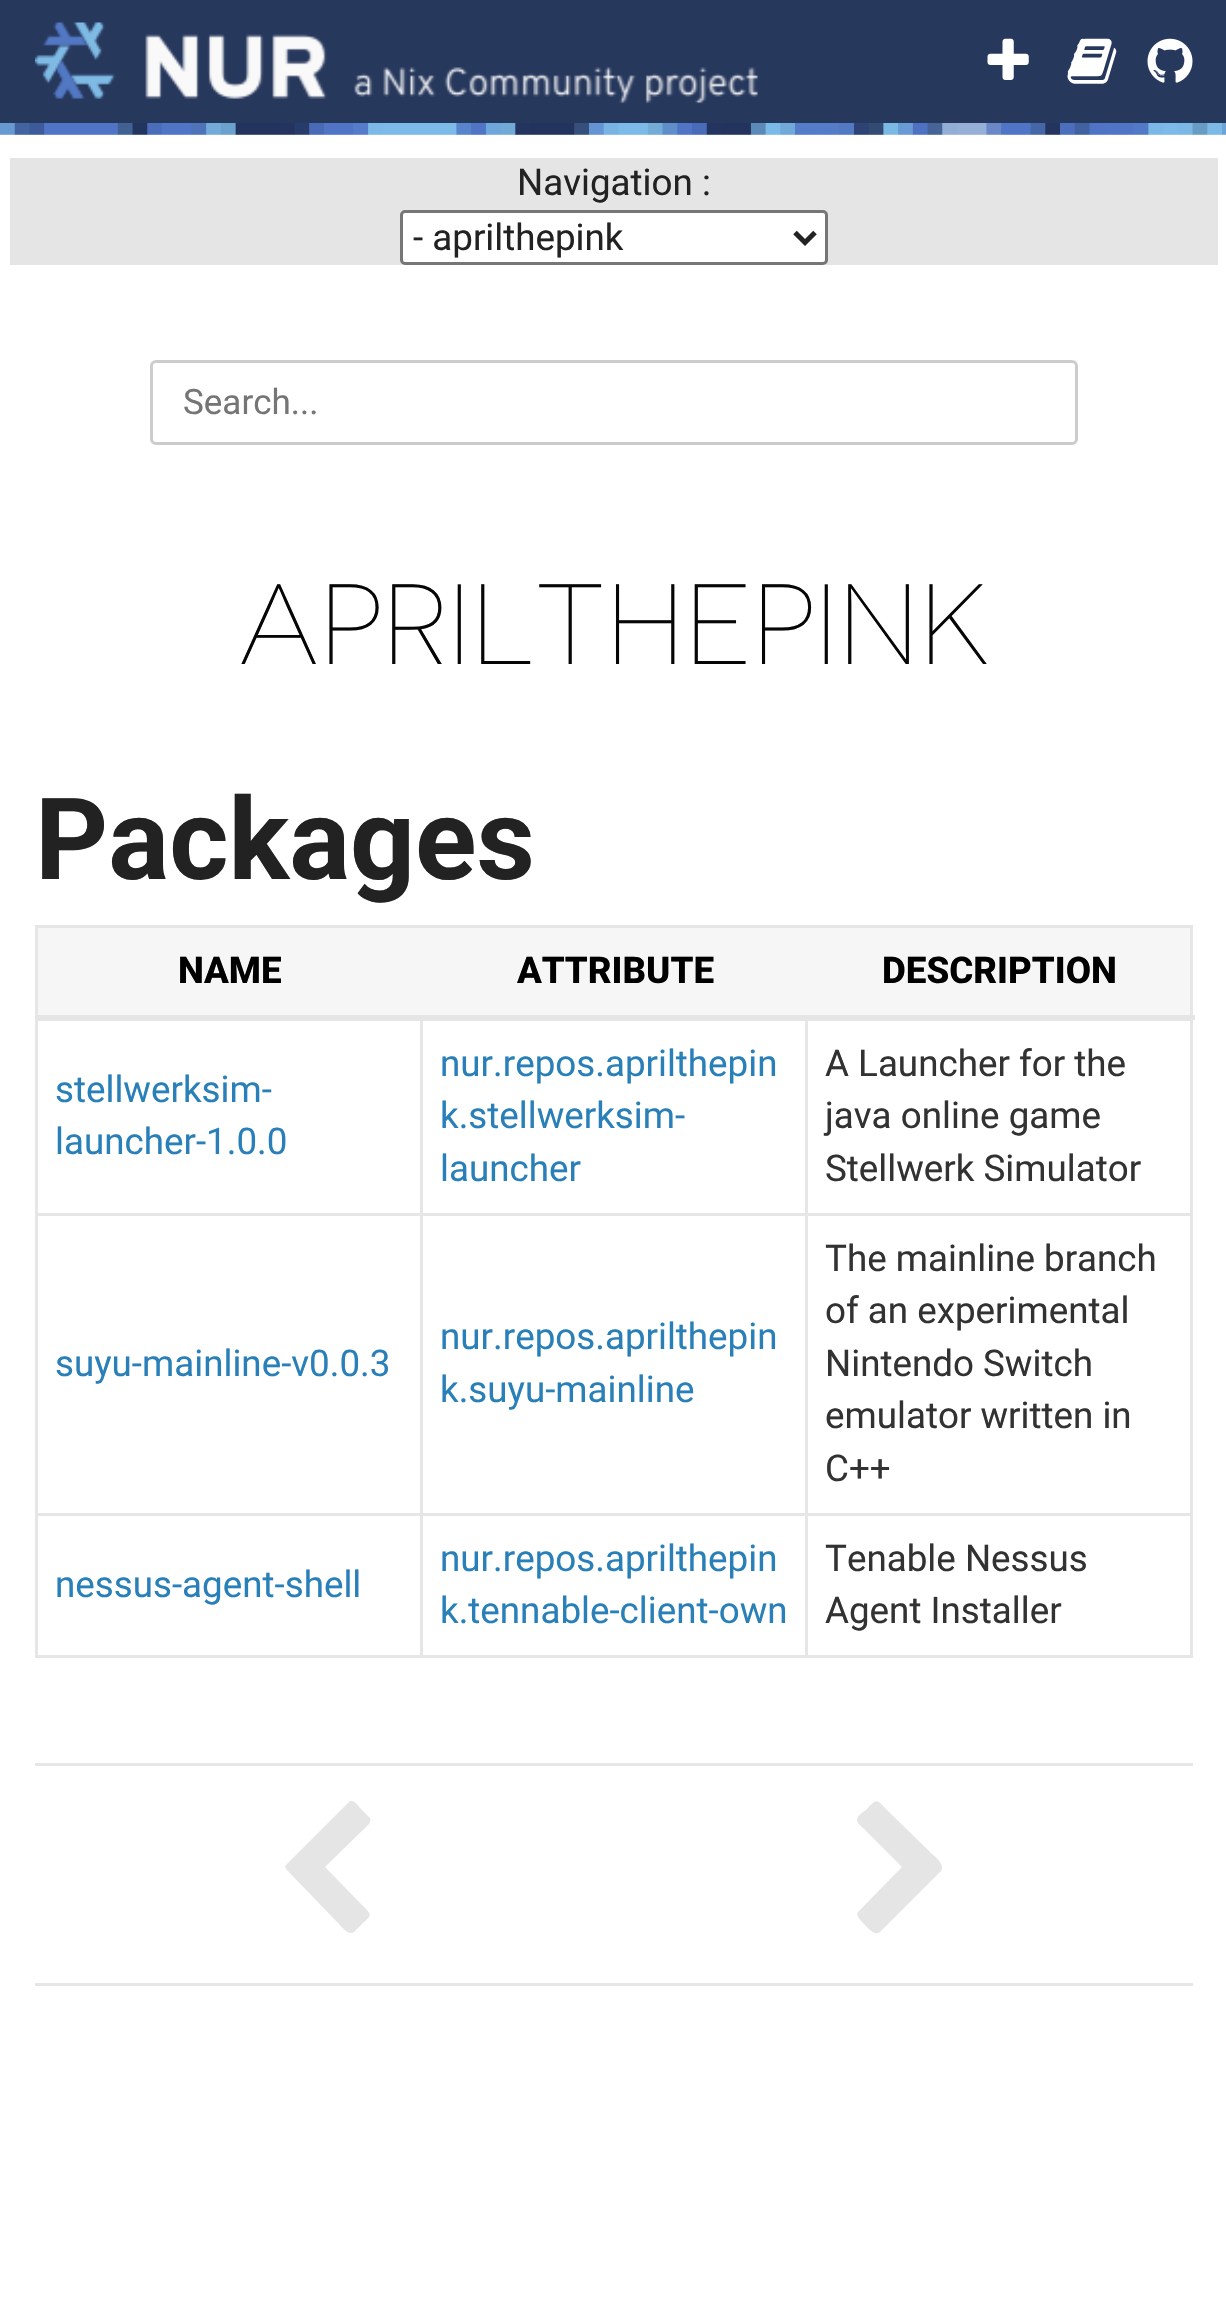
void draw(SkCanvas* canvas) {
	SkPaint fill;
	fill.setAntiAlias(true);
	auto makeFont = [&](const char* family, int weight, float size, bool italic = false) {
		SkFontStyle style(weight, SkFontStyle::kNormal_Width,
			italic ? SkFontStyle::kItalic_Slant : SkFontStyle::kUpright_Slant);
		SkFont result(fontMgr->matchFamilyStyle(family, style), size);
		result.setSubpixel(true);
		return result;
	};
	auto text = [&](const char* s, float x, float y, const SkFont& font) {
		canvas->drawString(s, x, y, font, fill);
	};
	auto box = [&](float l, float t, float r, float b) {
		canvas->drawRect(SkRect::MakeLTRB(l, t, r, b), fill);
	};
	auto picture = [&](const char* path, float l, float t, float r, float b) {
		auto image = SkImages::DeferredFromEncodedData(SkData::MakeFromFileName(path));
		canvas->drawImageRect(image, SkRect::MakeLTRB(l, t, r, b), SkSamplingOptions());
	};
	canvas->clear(0xFFFFFFFF);
	fill.setColor(0xFF27385D);
	box(0, 0, 1226, 123);
	picture("image0.png", 35, 22, 758, 104);
	picture("image1.png", 987, 38, 1029, 80);
	picture("image2.png", 1067, 38, 1117, 84);
	picture("image3.png", 1147, 38, 1193, 83);
	picture("image4.png", 0, 123, 1226, 135);
	fill.setColor(0xFFE5E5E5);
	box(10, 158, 1218, 265);
	fill.setColor(0xFFFFFFFF);
	canvas->drawRoundRect(SkRect::MakeLTRB(401.5f, 211.5f, 826.5f, 263.5f), 3.5f, 3.5f, fill);
	fill.setStyle(SkPaint::kStroke_Style);
	fill.setStrokeWidth(3);
	fill.setColor(0xFF767676);
	canvas->drawRoundRect(SkRect::MakeLTRB(401.5f, 211.5f, 826.5f, 263.5f), 3.5f, 3.5f, fill);
	fill.setStrokeWidth(5);
	fill.setColor(0xFF222222);
	canvas->drawPath(SkPathBuilder().moveTo(795, 232.5f).lineTo(805, 242.5f).lineTo(815, 232.5f).detach(), fill);
	fill.setStrokeWidth(3);
	fill.setColor(0xFFCCCCCC);
	canvas->drawRoundRect(SkRect::MakeLTRB(151.5f, 361.5f, 1076.5f, 443.5f), 4.5f, 4.5f, fill);
	fill.setStyle(SkPaint::kFill_Style);
	fill.setColor(0xFFE6E6E6);
	box(35, 925, 1193, 928);
	box(1190, 925, 1193, 1658);
	box(35, 1655, 1193, 1658);
	box(35, 925, 38, 1658);
	fill.setColor(0xFFF6F6F6);
	box(38, 928, 1190, 1015);
	fill.setColor(0xFFE6E6E6);
	box(805, 1020, 1193, 1021);
	box(805, 1213, 1193, 1216);
	box(805, 1513, 1193, 1516);
	box(805, 1513, 808, 1658);
	box(420, 1513, 808, 1516);
	box(805, 1213, 808, 1515);
	box(420, 1213, 808, 1216);
	box(805, 1018, 808, 1215);
	box(420, 1020, 808, 1021);
	box(420, 1513, 423, 1658);
	box(35, 1513, 423, 1516);
	box(420, 1213, 423, 1515);
	box(35, 1213, 423, 1216);
	box(420, 1018, 423, 1215);
	fill.setColor(0xFFE5E5E5);
	box(35, 1015, 1195, 1020);
	fill.setColor(0xFFE6E6E6);
	box(35, 1020, 423, 1021);
	box(35, 1763, 1193, 1766);
	box(35, 1983, 1193, 1986);
	fill.setColor(0xFFE5E5E5);
	canvas->drawPath(SkPathBuilder().moveTo(369, 1824).lineTo(325, 1867).lineTo(361, 1904).cubicTo(374, 1917, 372, 1914, 359, 1927).lineTo(354, 1932).cubicTo(348, 1937, 339, 1923, 337, 1922).lineTo(286, 1869).cubicTo(285, 1868, 285, 1866, 286, 1865).lineTo(348, 1803).cubicTo(352, 1798, 357, 1804, 359, 1807).lineTo(370, 1818).cubicTo(371, 1820, 370, 1822, 369, 1824).close().detach(), fill);
	canvas->drawPath(SkPathBuilder().moveTo(941, 1871).lineTo(880, 1932).cubicTo(876, 1935, 873, 1932, 870, 1930).lineTo(863, 1923).cubicTo(861, 1920, 854, 1915, 859, 1911).lineTo(902, 1867).lineTo(866, 1831).cubicTo(865, 1829, 857, 1824, 857, 1820).cubicTo(857, 1816, 863, 1812, 866, 1810).cubicTo(878, 1797, 876, 1799, 890, 1813).lineTo(931, 1853).cubicTo(932, 1854, 943, 1862, 942, 1868).close().detach(), fill);
	auto font1 = makeFont("Roboto", 400, 36.75f);
	fill.setColor(0xFF222222);
	text("Navigation :", 517, 195, font1);
	text("- aprilthepink", 413, 250, font1);
	auto font2 = makeFont("Roboto", 400, 35);
	fill.setColor(0xFF757575);
	text("Search...", 183, 414, font2);
	auto font3 = makeFont("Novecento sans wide", 200, 113.75f);
	fill.setColor(0xFF060606);
	text("APRILTHEPINK", 238, 664, font3);
	auto font4 = makeFont("Roboto", 700, 113.75f);
	fill.setColor(0xFF222222);
	text("Packages", 35, 879, font4);
	auto font5 = makeFont("Roboto", 800, 36.75f);
	fill.setColor(0xFF000000);
	text("NAME", 178, 983, font5);
	text("ATTRIBUTE", 517, 983, font5);
	text("DESCRIPTION", 882, 983, font5);
	fill.setColor(0xFF2980B9);
	text("stellwerksim-", 55, 1102, font1);
	text("launcher-1.0.0", 55, 1154, font1);
	text("nur.repos.aprilthepin", 440, 1076, font1);
	text("k.stellwerksim-", 440, 1128, font1);
	text("launcher", 440, 1181, font1);
	fill.setColor(0xFF323232);
	text("A Launcher for the", 825, 1076, font1);
	text("java online game", 825, 1128, font1);
	text("Stellwerk Simulator", 825, 1181, font1);
	fill.setColor(0xFF2980B9);
	text("suyu-mainline-v0.0.3", 55, 1376, font1);
	text("nur.repos.aprilthepin", 440, 1349, font1);
	text("k.suyu-mainline", 440, 1402, font1);
	fill.setColor(0xFF323232);
	text("The mainline branch", 825, 1271, font1);
	text("of an experimental", 825, 1323, font1);
	text("Nintendo Switch", 825, 1376, font1);
	text("emulator written in", 825, 1428, font1);
	text("C++", 825, 1481, font1);
	fill.setColor(0xFF2980B9);
	text("nessus-agent-shell", 55, 1597, font1);
	text("nur.repos.aprilthepin", 440, 1571, font1);
	text("k.tennable-client-own", 440, 1623, font1);
	fill.setColor(0xFF323232);
	text("Tenable Nessus", 825, 1571, font1);
	text("Agent Installer", 825, 1623, font1);
}
